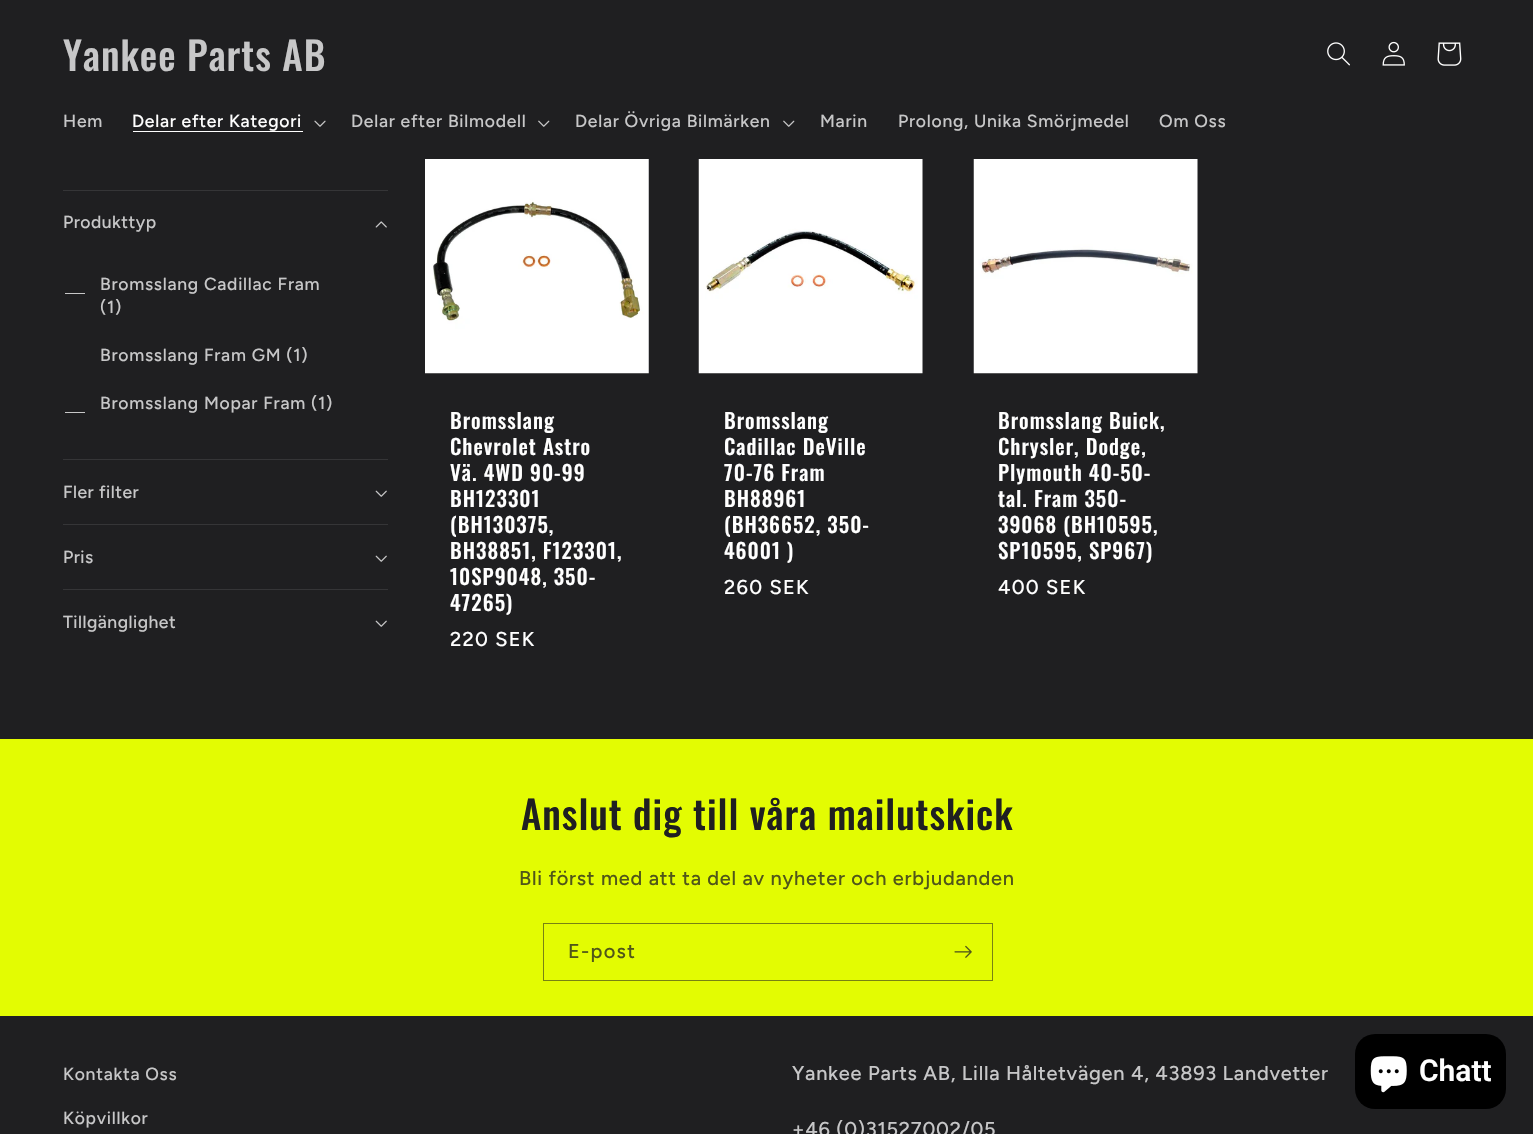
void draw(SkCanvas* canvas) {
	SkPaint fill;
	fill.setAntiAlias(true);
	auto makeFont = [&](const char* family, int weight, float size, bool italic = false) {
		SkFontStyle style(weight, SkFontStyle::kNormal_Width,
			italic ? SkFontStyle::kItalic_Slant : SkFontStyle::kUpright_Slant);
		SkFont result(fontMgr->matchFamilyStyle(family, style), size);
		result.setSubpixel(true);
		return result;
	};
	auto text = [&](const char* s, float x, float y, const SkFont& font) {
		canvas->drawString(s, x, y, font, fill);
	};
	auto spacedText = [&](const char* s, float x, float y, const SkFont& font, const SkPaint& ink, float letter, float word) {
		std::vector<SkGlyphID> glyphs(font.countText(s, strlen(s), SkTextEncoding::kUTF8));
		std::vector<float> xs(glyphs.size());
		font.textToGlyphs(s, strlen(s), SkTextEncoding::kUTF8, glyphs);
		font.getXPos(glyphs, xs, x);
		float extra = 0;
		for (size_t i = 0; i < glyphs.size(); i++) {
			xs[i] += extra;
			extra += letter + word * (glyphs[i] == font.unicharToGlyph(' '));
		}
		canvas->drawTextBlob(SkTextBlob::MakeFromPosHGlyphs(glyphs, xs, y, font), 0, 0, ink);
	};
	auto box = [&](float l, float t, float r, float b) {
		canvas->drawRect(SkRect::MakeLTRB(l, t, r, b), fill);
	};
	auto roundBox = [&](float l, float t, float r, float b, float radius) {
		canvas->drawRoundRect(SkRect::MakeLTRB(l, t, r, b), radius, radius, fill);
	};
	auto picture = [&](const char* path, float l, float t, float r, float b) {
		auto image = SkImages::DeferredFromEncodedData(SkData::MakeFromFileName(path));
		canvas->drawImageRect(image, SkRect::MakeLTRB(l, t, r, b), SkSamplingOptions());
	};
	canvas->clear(0xFF1F1F21);
	picture("image0.png", 1327, 42, 1350, 66);
	picture("image1.png", 1382, 41, 1405, 66);
	picture("image2.png", 1437, 42, 1462, 66);
	fill.setColor(0xFFFFFFFF);
	box(133, 131, 303, 132);
	picture("image3.png", 314, 120, 326, 127);
	picture("image4.png", 538, 120, 550, 127);
	picture("image4.png", 783, 120, 795, 127);
	fill.setColor(0xFF353537);
	box(63, 190, 388, 191);
	picture("image5.png", 375, 221, 387, 228);
	canvas->save();
	canvas->clipRect(SkRect::MakeLTRB(65, 274, 85, 294));
	fill.setStyle(SkPaint::kStroke_Style);
	fill.setStrokeWidth(1);
	fill.setColor(0xFFC7C7C8);
	canvas->drawRect(SkRect::MakeLTRB(64.5f, 273.5f, 85.5f, 293.5f), fill);
	canvas->restore();
	canvas->save();
	canvas->clipRect(SkRect::MakeLTRB(65, 393, 85, 413));
	canvas->drawRect(SkRect::MakeLTRB(64.5f, 392.5f, 85.5f, 412.5f), fill);
	canvas->restore();
	fill.setStyle(SkPaint::kFill_Style);
	fill.setColor(0xFF353537);
	box(63, 459, 388, 460);
	picture("image6.png", 375, 490, 387, 497);
	box(63, 524, 388, 525);
	picture("image6.png", 375, 555, 387, 562);
	box(63, 589, 388, 590);
	picture("image6.png", 375, 620, 387, 627);
	picture("image7.png", 425, 159, 649, 374);
	picture("image8.png", 698, 159, 923, 374);
	picture("image9.png", 973, 159, 1198, 374);
	fill.setColor(0xFFE3FC02);
	box(0, 739, 1533, 1016);
	fill.setStyle(SkPaint::kStroke_Style);
	fill.setColor(0xFF778213);
	canvas->drawRect(SkRect::MakeLTRB(543.5f, 923.5f, 992.5f, 980.5f), fill);
	picture("image10.png", 954, 945, 972, 958);
	fill.setStyle(SkPaint::kFill_Style);
	fill.setColor(0xFF000000);
	roundBox(1355, 1034, 1506, 1109, 20);
	picture("image11.png", 1370, 1056, 1407, 1093);
	auto font1 = makeFont("Oswald", 500, 39);
	fill.setColor(0xFFC7C7C8);
	spacedText("Yankee Parts AB", 63, 71, font1, fill, 1, 0);
	auto font2 = makeFont("Figtree", 500, 17.5f);
	spacedText("Hem", 63, 127, font2, fill, 0.75f, 0);
	fill.setColor(0xFFFFFFFF);
	spacedText("Delar efter Kategori", 132, 127, font2, fill, 0.75f, 0);
	fill.setColor(0xFFC7C7C8);
	spacedText("Delar efter Bilmodell", 351, 127, font2, fill, 0.75f, 0);
	spacedText("Delar Övriga Bilmärken", 575, 127, font2, fill, 0.75f, 0);
	spacedText("Marin", 820, 127, font2, fill, 0.75f, 0);
	spacedText("Prolong, Unika Smörjmedel", 898, 127, font2, fill, 0.75f, 0);
	spacedText("Om Oss", 1159, 127, font2, fill, 0.75f, 0);
	spacedText("Produkttyp", 63, 228, font2, fill, 0.5f, 0);
	spacedText("Bromsslang Cadillac Fram", 100, 290, font2, fill, 0.75f, 0);
	spacedText("(1)", 100, 313, font2, fill, 0.75f, 0);
	spacedText("Bromsslang Fram GM (1)", 100, 361, font2, fill, 0.75f, 0);
	spacedText("Bromsslang Mopar Fram (1)", 100, 409, font2, fill, 0.75f, 0);
	spacedText("Fler filter", 63, 498, font2, fill, 0.5f, 0);
	spacedText("Pris", 63, 563, font2, fill, 0.5f, 0);
	spacedText("Tillgänglighet", 63, 628, font2, fill, 0.5f, 0);
	auto font3 = makeFont("Oswald", 500, 21);
	fill.setColor(0xFFFFFFFF);
	spacedText("Bromsslang", 450, 429, font3, fill, 1, 0);
	spacedText("Chevrolet Astro", 450, 455, font3, fill, 1, 0);
	spacedText("Vä. 4WD 90-99", 450, 481, font3, fill, 1, 0);
	spacedText("BH123301", 450, 507, font3, fill, 1, 0);
	spacedText("(BH130375,", 450, 533, font3, fill, 1, 0);
	spacedText("BH38851, F123301,", 450, 559, font3, fill, 1, 0);
	spacedText("10SP9048, 350-", 450, 585, font3, fill, 1, 0);
	spacedText("47265)", 450, 611, font3, fill, 1, 0);
	auto font4 = makeFont("Figtree", 500, 20);
	spacedText("220 SEK", 450, 646, font4, fill, 1.25f, 0);
	spacedText("Bromsslang", 724, 429, font3, fill, 1, 0);
	spacedText("Cadillac DeVille", 724, 455, font3, fill, 1, 0);
	spacedText("70-76 Fram", 724, 481, font3, fill, 1, 0);
	spacedText("BH88961", 724, 507, font3, fill, 1, 0);
	spacedText("(BH36652, 350-", 724, 533, font3, fill, 1, 0);
	spacedText("46001 )", 724, 559, font3, fill, 1, 0);
	spacedText("260 SEK", 724, 594, font4, fill, 1.25f, 0);
	spacedText("Bromsslang Buick,", 998, 429, font3, fill, 1, 0);
	spacedText("Chrysler, Dodge,", 998, 455, font3, fill, 1, 0);
	spacedText("Plymouth 40-50-", 998, 481, font3, fill, 1, 0);
	spacedText("tal. Fram 350-", 998, 507, font3, fill, 1, 0);
	spacedText("39068 (BH10595,", 998, 533, font3, fill, 1, 0);
	spacedText("SP10595, SP967)", 998, 559, font3, fill, 1, 0);
	spacedText("400 SEK", 998, 594, font4, fill, 1.25f, 0);
	fill.setColor(0xFF1F1F21);
	spacedText("Anslut dig till våra mailutskick", 521, 830, font1, fill, 1, 0);
	fill.setColor(0xFF505619);
	spacedText("Bli först med att ta del av nyheter och erbjudanden", 519, 885, font4, fill, 0.75f, 0);
	spacedText("E-post", 568, 958, font4, fill, 1.25f, 0);
	fill.setColor(0xFFC7C7C8);
	spacedText("Kontakta Oss", 63, 1080, font2, fill, 0.75f, 0);
	spacedText("Köpvillkor", 63, 1124, font2, fill, 0.75f, 0);
	spacedText("Yankee Parts AB, Lilla Håltetvägen 4, 43893 Landvetter", 792, 1080, font4, fill, 0.75f, 0);
	spacedText("+46 (0)31527002/05", 792, 1136, font4, fill, 0.75f, 0);
	auto font5 = makeFont("Roboto", 600, 30);
	fill.setColor(0xFFFFFFFF);
	text("Chatt", 1419, 1081, font5);
}
